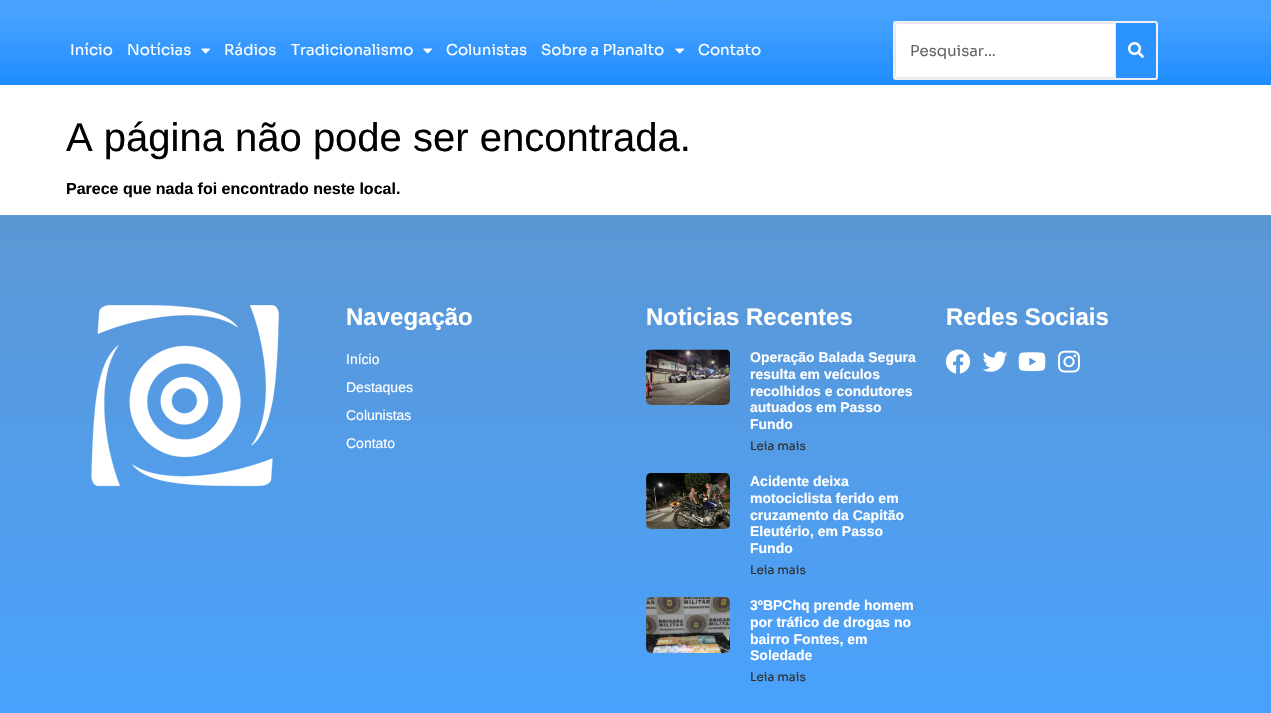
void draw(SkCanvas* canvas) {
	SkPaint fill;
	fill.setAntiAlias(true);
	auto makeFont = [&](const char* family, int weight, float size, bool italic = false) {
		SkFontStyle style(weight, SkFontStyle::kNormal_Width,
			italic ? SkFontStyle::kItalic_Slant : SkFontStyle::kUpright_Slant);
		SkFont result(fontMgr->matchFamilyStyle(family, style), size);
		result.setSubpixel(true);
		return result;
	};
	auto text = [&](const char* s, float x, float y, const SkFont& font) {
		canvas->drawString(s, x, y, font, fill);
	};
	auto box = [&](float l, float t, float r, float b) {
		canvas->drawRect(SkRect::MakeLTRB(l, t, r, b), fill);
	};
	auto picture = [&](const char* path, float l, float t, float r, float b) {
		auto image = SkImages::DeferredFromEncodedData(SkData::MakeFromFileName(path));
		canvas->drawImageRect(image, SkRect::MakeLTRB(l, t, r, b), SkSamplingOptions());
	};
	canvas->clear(0xFFFFFFFF);
	fill.setColor(0xFF47A1FF);
	box(0, 0, 1271, 16);
	fill.setStyle(SkPaint::kStroke_Style);
	fill.setStrokeWidth(2.1f);
	fill.setColor(0xFFFF7B00);
	canvas->drawPath(SkPathBuilder().moveTo(616, -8.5f).cubicTo(655.5f, -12, 696.5f, -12.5f, 736, -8.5f).cubicTo(708.5f, -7.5f, 659, -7, 631.5f, -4).cubicTo(652, -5, 694.5f, -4.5f, 714.5f, -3.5f).cubicTo(701, -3, 680.5f, -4, 666, -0.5f).detach(), fill);
	fill.setStyle(SkPaint::kFill_Style);
	{
		const SkColor colors[] = {0xFF47A1FF, 0xFF1F8DFF};
		const float stops[] = {0, 1};
		const SkPoint ends[] = {{636, 16}, {636, 85}};
		fill.setShader(SkGradientShader::MakeLinear(ends, colors, stops, 2, SkTileMode::kClamp));
		fill.setAlpha(255);
	}
	box(0, 16, 1271, 85);
	picture("image0.png", 201, 48, 210, 54);
	picture("image0.png", 423, 48, 432, 54);
	picture("image0.png", 675, 48, 684, 54);
	fill.setShader(nullptr);
	fill.setColor(0xFFFFFFFF);
	canvas->drawRoundRect(SkRect::MakeLTRB(894, 22, 1157, 79), 2, 2, fill);
	fill.setStyle(SkPaint::kStroke_Style);
	fill.setStrokeWidth(2);
	fill.setColor(0xFFEFEFEF);
	canvas->drawRoundRect(SkRect::MakeLTRB(894, 22, 1157, 79), 2, 2, fill);
	fill.setStrokeWidth(1);
	fill.setColor(0xFFE5E5E8);
	canvas->drawRoundRect(SkRect::MakeLTRB(895.5f, 23.5f, 1115.5f, 77.5f), 2.5f, 2.5f, fill);
	fill.setStyle(SkPaint::kFill_Style);
	fill.setColor(0xD4007DFF);
	canvas->drawPath(SkPathBuilder().moveTo(1116, 23).lineTo(1155, 23).cubicTo(1155.5f, 23, 1156, 23.5f, 1156, 24).lineTo(1156, 77).cubicTo(1156, 77.5f, 1155.5f, 78, 1155, 78).lineTo(1116, 78).close().detach(), fill);
	picture("image1.png", 1128, 42, 1144, 58);
	{
		const SkColor colors[] = {0xFF5C97D4, 0xFF48A2FF};
		const float stops[] = {0, 1};
		const SkPoint ends[] = {{636, 215}, {636, 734}};
		fill.setShader(SkGradientShader::MakeLinear(ends, colors, stops, 2, SkTileMode::kClamp));
		fill.setAlpha(255);
	}
	box(0, 215, 1271, 713);
	picture("image2.png", 91, 305, 279, 487);
	picture("image3.png", 646, 349, 730, 405);
	picture("image4.png", 646, 473, 730, 529);
	picture("image5.png", 646, 597, 730, 653);
	picture("image6.png", 945, 349, 971, 374);
	picture("image7.png", 982, 351, 1008, 372);
	picture("image8.png", 1018, 352, 1046, 371);
	picture("image9.png", 1058, 350, 1080, 373);
	auto font1 = makeFont("Sora", 400, 15);
	fill.setShader(nullptr);
	fill.setColor(0xFFFFFFFF);
	text("Início", 70, 55, font1);
	text("Notícias", 127, 55, font1);
	text("Rádios", 224, 55, font1);
	text("Tradicionalismo", 291, 55, font1);
	text("Colunistas", 446, 55, font1);
	text("Sobre a Planalto", 541, 55, font1);
	text("Contato", 698, 55, font1);
	fill.setColor(0xFF666666);
	text("Pesquisar...", 910, 56, font1);
	auto font2 = makeFont("Liberation Sans", 400, 40);
	fill.setColor(0xFF000000);
	text("A página não pode ser encontrada.", 66, 151, font2);
	auto font3 = makeFont("Liberation Sans", 700, 16);
	text("Parece que nada foi encontrado neste local.", 66, 194, font3);
	auto font4 = makeFont("Liberation Sans", 700, 24);
	fill.setColor(0xFFFFFFFF);
	text("Navegação", 346, 325, font4);
	auto font5 = makeFont("Liberation Sans", 400, 14);
	text("Início", 346, 364, font5);
	text("Destaques", 346, 392, font5);
	text("Colunistas", 346, 420, font5);
	text("Contato", 346, 448, font5);
	text("Noticias Recentes", 646, 325, font4);
	auto font6 = makeFont("Liberation Sans", 700, 14);
	text("Operação Balada Segura", 750, 362, font6);
	text("resulta em veículos", 750, 379, font6);
	text("recolhidos e condutores", 750, 396, font6);
	text("autuados em Passo", 750, 412, font6);
	text("Fundo", 750, 429, font6);
	auto font7 = makeFont("Sora", 400, 12);
	fill.setColor(0xFF2E2E2E);
	text("Leia mais", 750, 450, font7);
	fill.setColor(0xFFFFFFFF);
	text("Acidente deixa", 750, 486, font6);
	text("motociclista ferido em", 750, 503, font6);
	text("cruzamento da Capitão", 750, 520, font6);
	text("Eleutério, em Passo", 750, 536, font6);
	text("Fundo", 750, 553, font6);
	fill.setColor(0xFF2E2E2E);
	text("Leia mais", 750, 574, font7);
	fill.setColor(0xFFFFFFFF);
	text("3ºBPChq prende homem", 750, 610, font6);
	text("por tráfico de drogas no", 750, 627, font6);
	text("bairro Fontes, em", 750, 644, font6);
	text("Soledade", 750, 660, font6);
	fill.setColor(0xFF2E2E2E);
	text("Leia mais", 750, 681, font7);
	fill.setColor(0xFFFFFFFF);
	text("Redes Sociais", 946, 325, font4);
}
